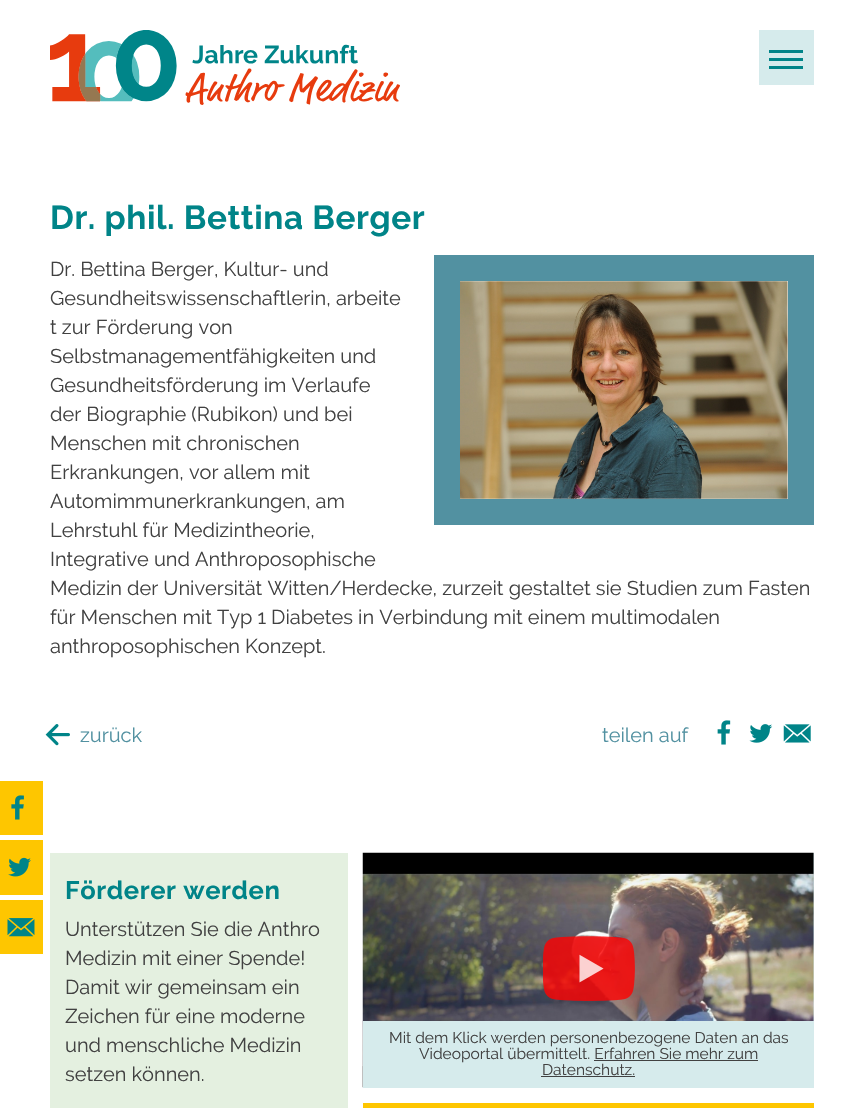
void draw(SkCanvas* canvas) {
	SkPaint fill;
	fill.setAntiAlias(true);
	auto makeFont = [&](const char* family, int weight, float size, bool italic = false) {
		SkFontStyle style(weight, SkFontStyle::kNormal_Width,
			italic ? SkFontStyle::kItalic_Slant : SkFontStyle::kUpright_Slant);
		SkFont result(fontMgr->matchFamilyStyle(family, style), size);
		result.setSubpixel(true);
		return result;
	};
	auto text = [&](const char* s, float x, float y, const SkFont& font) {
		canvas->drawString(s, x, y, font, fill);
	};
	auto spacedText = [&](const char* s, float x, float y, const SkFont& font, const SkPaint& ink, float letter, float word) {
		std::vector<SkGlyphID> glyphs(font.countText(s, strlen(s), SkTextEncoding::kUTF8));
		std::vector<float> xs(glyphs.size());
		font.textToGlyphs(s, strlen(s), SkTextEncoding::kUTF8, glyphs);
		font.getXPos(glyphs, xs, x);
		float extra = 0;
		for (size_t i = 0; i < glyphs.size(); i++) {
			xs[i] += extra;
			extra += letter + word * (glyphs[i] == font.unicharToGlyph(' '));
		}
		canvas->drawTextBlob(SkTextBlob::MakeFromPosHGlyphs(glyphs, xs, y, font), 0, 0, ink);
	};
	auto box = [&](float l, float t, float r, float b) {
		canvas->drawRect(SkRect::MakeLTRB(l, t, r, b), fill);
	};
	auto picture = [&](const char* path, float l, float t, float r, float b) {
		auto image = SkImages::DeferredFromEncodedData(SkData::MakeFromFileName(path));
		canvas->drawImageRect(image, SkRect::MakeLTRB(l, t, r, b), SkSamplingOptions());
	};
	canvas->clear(0xFFFFFFFF);
	picture("image0.png", 50, 30, 400, 105);
	fill.setColor(0xFFD6EBEC);
	box(759, 30, 814, 85);
	fill.setColor(0xFF008488);
	box(769, 58, 803, 61);
	box(769, 50, 803, 53);
	box(769, 66, 803, 69);
	fill.setStyle(SkPaint::kStroke_Style);
	fill.setStrokeWidth(26);
	fill.setColor(0xFF5291A1);
	canvas->drawRect(SkRect::MakeLTRB(447, 268, 801, 512), fill);
	picture("image1.png", 460, 281, 788, 499);
	picture("image2.png", 45, 724, 70, 746);
	picture("image3.png", 717, 720, 731, 745);
	picture("image4.png", 749, 724, 773, 743);
	picture("image5.png", 783, 724, 811, 743);
	fill.setStyle(SkPaint::kFill_Style);
	fill.setColor(0xFFFEC600);
	box(0, 781, 43, 835);
	picture("image6.png", 11, 795, 24, 820);
	box(0, 840, 43, 895);
	picture("image7.png", 8, 857, 31, 877);
	box(0, 900, 43, 954);
	picture("image8.png", 7, 918, 35, 937);
	fill.setColor(0xFFE4F0E0);
	box(50, 853, 348, 1108);
	fill.setColor(0xFFD6EBEC);
	box(813, 853, 814, 1021);
	picture("image9.png", 362, 852, 814, 1088);
	picture("image10.png", 543, 936, 635, 1001);
	box(363, 1021, 814, 1088);
	fill.setColor(0xFF414141);
	box(594, 1060, 758, 1061);
	box(541, 1076, 635, 1077);
	fill.setColor(0xFFFEC600);
	box(363, 1103, 814, 1108);
	auto font1 = makeFont("Raleway", 700, 33.25f);
	fill.setColor(0xFF008488);
	spacedText("Dr. phil. Bettina Berger", 50, 229, font1, fill, 0.6f, 0);
	auto font2 = makeFont("Raleway", 400, 20);
	fill.setColor(0xFF414141);
	text("Dr. Bettina Berger, Kultur- und", 50, 276, font2);
	text("Gesundheitswissenschaftlerin, arbeite", 50, 305, font2);
	text("t zur Förderung von", 50, 334, font2);
	text("Selbstmanagementfähigkeiten und", 50, 363, font2);
	text("Gesundheitsförderung im Verlaufe", 50, 392, font2);
	text("der Biographie (Rubikon) und bei", 50, 421, font2);
	text("Menschen mit chronischen", 50, 450, font2);
	text("Erkrankungen, vor allem mit", 50, 479, font2);
	text("Automimmunerkrankungen, am", 50, 508, font2);
	text("Lehrstuhl für Medizintheorie,", 50, 537, font2);
	text("Integrative und Anthroposophische", 50, 566, font2);
	text("Medizin der Universität Witten/Herdecke, zurzeit gestaltet sie Studien zum Fasten", 50, 595, font2);
	text("für Menschen mit Typ 1 Diabetes in Verbindung mit einem multimodalen", 50, 624, font2);
	text("anthroposophischen Konzept.", 50, 653, font2);
	fill.setColor(0xFF5291A1);
	text("zurück", 80, 742, font2);
	text("teilen auf", 602, 742, font2);
	auto font3 = makeFont("Raleway", 700, 25.5f);
	fill.setColor(0xFF008488);
	spacedText("Förderer werden", 65, 899, font3, fill, 0.6f, 0);
	fill.setColor(0xFF414141);
	text("Unterstützen Sie die Anthro", 65, 936, font2);
	text("Medizin mit einer Spende!", 65, 965, font2);
	text("Damit wir gemeinsam ein", 65, 994, font2);
	text("Zeichen für eine moderne", 65, 1023, font2);
	text("und menschliche Medizin", 65, 1052, font2);
	text("setzen können.", 65, 1081, font2);
	auto font4 = makeFont("Raleway", 400, 15.55f);
	text("Mit dem Klick werden personenbezogene Daten an das", 389, 1043, font4);
	text("Videoportal übermittelt. Erfahren Sie mehr zum", 419, 1059, font4);
	text("Datenschutz.", 542, 1075, font4);
}
